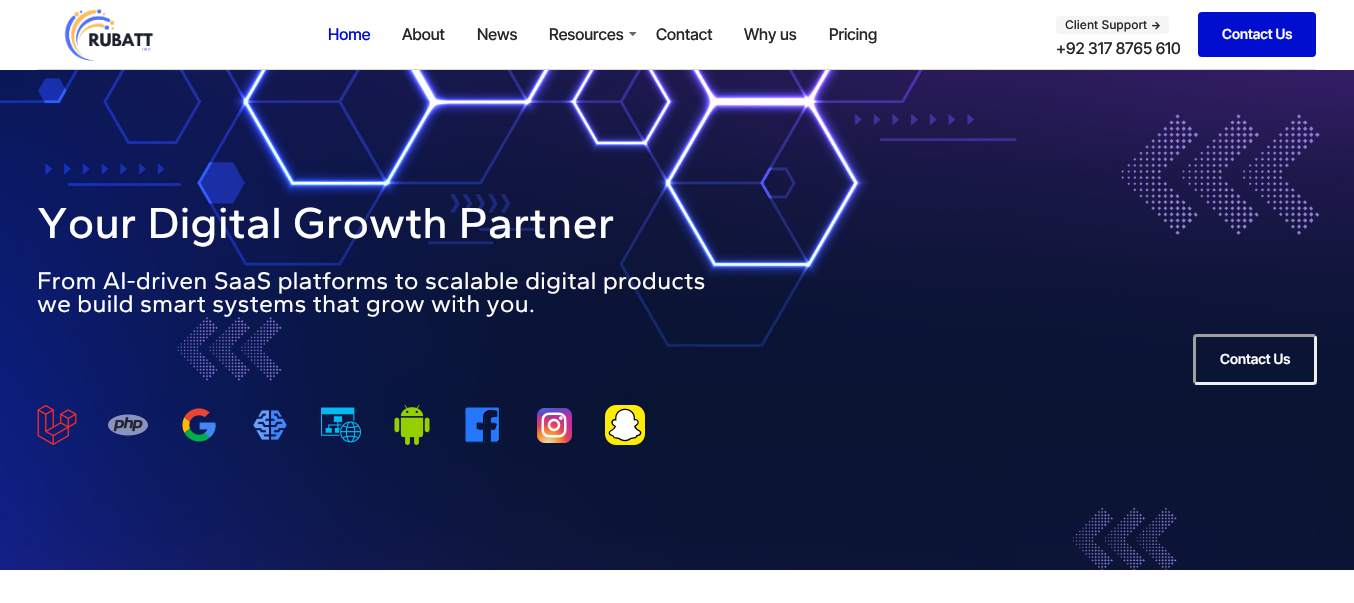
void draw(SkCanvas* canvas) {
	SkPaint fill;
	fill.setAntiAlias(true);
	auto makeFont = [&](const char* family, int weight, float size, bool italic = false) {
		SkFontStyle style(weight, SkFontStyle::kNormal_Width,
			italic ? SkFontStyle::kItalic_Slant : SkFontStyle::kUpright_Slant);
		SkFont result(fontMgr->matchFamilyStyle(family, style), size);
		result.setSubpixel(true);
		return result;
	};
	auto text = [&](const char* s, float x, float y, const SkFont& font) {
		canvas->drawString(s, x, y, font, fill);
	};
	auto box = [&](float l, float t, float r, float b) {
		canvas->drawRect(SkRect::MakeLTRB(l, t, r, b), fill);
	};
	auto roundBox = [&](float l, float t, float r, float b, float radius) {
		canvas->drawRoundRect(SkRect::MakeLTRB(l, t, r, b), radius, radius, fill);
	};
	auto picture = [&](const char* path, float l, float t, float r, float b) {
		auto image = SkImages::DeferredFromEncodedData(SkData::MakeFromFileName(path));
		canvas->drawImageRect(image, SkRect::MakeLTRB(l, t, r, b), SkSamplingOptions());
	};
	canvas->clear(0xFFFFFFFF);
	fill.setColor(0xFFD9D9D9);
	box(37, 69, 1316, 70);
	picture("image0.png", 64, 8, 154, 61);
	picture("image1.png", 629, 32, 637, 36);
	fill.setColor(0xFFF5F5F5);
	roundBox(1056, 16, 1169, 34, 4);
	picture("image2.png", 1152, 21, 1160, 30);
	fill.setColor(0xFF010ED0);
	roundBox(1198, 12, 1316, 57, 4);
	picture("image3.png", 0, 70, 1354, 570);
	fill.setStyle(SkPaint::kStroke_Style);
	fill.setStrokeWidth(3);
	fill.setColor(0xFFEEEEEE);
	canvas->drawPath(SkPathBuilder().moveTo(1315, 336).lineTo(1315.5f, 338).lineTo(1315.5f, 381).lineTo(1315, 383).lineTo(1313, 383.5f).lineTo(1197, 383.5f).lineTo(1195, 383).detach(), fill);
	fill.setColor(0xFF9F9F9F);
	canvas->drawPath(SkPathBuilder().moveTo(1195, 383).lineTo(1194.5f, 381).lineTo(1194.5f, 338).lineTo(1195, 336).lineTo(1197, 335.5f).lineTo(1313, 335.5f).lineTo(1315, 336).detach(), fill);
	picture("image4.png", 37, 405, 77, 445);
	picture("image5.png", 108, 414, 148, 436);
	picture("image6.png", 182, 408, 216, 442);
	picture("image7.png", 253, 410, 287, 440);
	picture("image8.png", 321, 407, 361, 443);
	picture("image9.png", 394, 405, 430, 445);
	picture("image10.png", 465, 407, 501, 443);
	picture("image11.png", 537, 408, 572, 443);
	picture("image12.png", 605, 405, 645, 445);
	auto font1 = makeFont("Inter Tight", 500, 16);
	fill.setStyle(SkPaint::kFill_Style);
	fill.setColor(0xFF010ED0);
	text("Home", 328, 40, font1);
	fill.setColor(0xFF242627);
	text("About", 402, 40, font1);
	text("News", 477, 40, font1);
	text("Resources", 549, 40, font1);
	text("Contact", 656, 40, font1);
	text("Why us", 744, 40, font1);
	text("Pricing", 829, 40, font1);
	auto font2 = makeFont("Inter", 500, 12);
	text("Client Support", 1065, 29, font2);
	text("+92 317 8765 610", 1056, 54, font1);
	auto font3 = makeFont("Inter Tight", 600, 14);
	fill.setColor(0xFFFFFFFF);
	text("Contact Us", 1222, 39, font3);
	auto font4 = makeFont("Gantari", 500, 45);
	text("Your Digital Growth Partner", 37, 238, font4);
	auto font5 = makeFont("Gantari", 400, 25);
	text("From AI-driven SaaS platforms to scalable digital products", 37, 289, font5);
	text("we build smart systems that grow with you.", 37, 312, font5);
	text("Contact Us", 1220, 364, font3);
}
